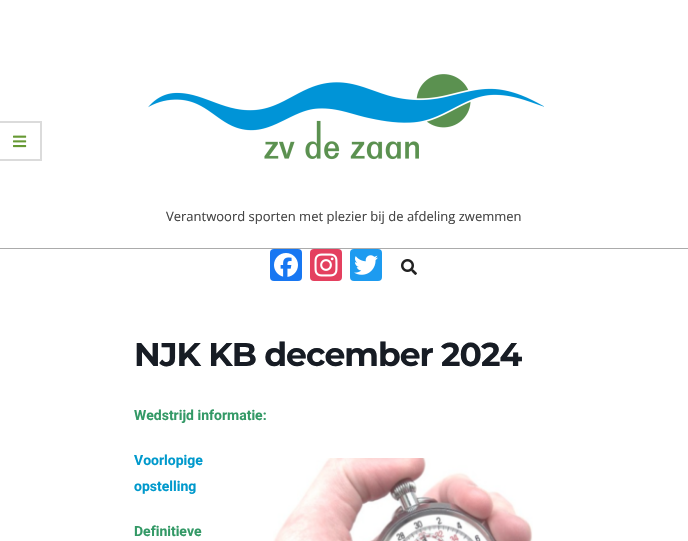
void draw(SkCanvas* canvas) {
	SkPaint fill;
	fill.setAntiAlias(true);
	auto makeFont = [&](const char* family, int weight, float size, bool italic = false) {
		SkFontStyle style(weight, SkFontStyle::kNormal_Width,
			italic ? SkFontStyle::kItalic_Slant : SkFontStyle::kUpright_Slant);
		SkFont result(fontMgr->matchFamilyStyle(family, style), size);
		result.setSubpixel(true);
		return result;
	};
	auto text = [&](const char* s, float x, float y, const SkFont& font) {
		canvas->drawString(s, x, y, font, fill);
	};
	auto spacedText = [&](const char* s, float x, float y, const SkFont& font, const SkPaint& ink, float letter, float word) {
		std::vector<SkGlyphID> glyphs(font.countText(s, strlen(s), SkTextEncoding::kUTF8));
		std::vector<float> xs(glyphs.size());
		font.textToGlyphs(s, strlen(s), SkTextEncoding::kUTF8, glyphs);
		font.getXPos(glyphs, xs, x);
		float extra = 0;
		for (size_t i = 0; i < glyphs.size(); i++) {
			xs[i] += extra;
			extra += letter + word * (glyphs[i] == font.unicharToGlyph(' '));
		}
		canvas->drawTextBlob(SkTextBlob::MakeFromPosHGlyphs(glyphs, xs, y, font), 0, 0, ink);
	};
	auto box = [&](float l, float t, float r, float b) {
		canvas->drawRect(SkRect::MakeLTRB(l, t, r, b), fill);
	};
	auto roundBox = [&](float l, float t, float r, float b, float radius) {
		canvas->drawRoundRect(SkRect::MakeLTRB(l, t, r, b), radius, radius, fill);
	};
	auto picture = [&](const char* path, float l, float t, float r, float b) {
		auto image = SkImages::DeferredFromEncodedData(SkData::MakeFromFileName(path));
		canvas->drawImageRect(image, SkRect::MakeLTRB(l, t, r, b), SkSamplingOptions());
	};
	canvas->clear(0xFFFFFFFF);
	fill.setColor(0xFFDBDBDB);
	canvas->drawPath(SkPathBuilder().moveTo(0, 121).lineTo(42, 121).lineTo(40, 123).lineTo(0, 123).close().detach(), fill);
	fill.setColor(0x24000000);
	canvas->drawPath(SkPathBuilder().moveTo(42, 121).lineTo(42, 161).lineTo(40, 159).lineTo(40, 123).close().detach(), fill);
	canvas->drawPath(SkPathBuilder().moveTo(42, 161).lineTo(0, 161).lineTo(0, 159).lineTo(40, 159).close().detach(), fill);
	picture("image0.png", 13, 135, 27, 148);
	fill.setColor(0xFF1877F2);
	roundBox(270, 249, 302, 281, 4);
	picture("image1.png", 274, 253, 298, 277);
	fill.setColor(0xFFE4405F);
	roundBox(310, 249, 342, 281, 4);
	picture("image2.png", 314, 253, 338, 277);
	fill.setColor(0xFF1D9BF0);
	roundBox(350, 249, 382, 281, 4);
	picture("image3.png", 354, 255, 378, 275);
	picture("image4.png", 401, 259, 417, 275);
	fill.setColor(0xFFABABAB);
	box(0, 248, 688, 249);
	picture("image5.png", 148, 74, 544, 160);
	picture("image6.png", 273, 458, 533, 541);
	auto font1 = makeFont("Open Sans", 400, 13);
	fill.setColor(0xFF444444);
	text("Verantwoord sporten met plezier bij de afdeling zwemmen", 166, 221, font1);
	auto font2 = makeFont("Montserrat", 700, 33);
	fill.setColor(0xFF171C24);
	spacedText("NJK KB december 2024", 134, 366, font2, fill, -1, 0);
	auto font3 = makeFont("Roboto", 700, 14);
	fill.setColor(0xFF339966);
	text("Wedstrijd informatie:", 134, 420, font3);
	fill.setColor(0xFF0099CC);
	text("Voorlopige", 134, 465, font3);
	text("opstelling", 134, 491, font3);
	fill.setColor(0xFF339966);
	text("Definitieve", 134, 536, font3);
}
